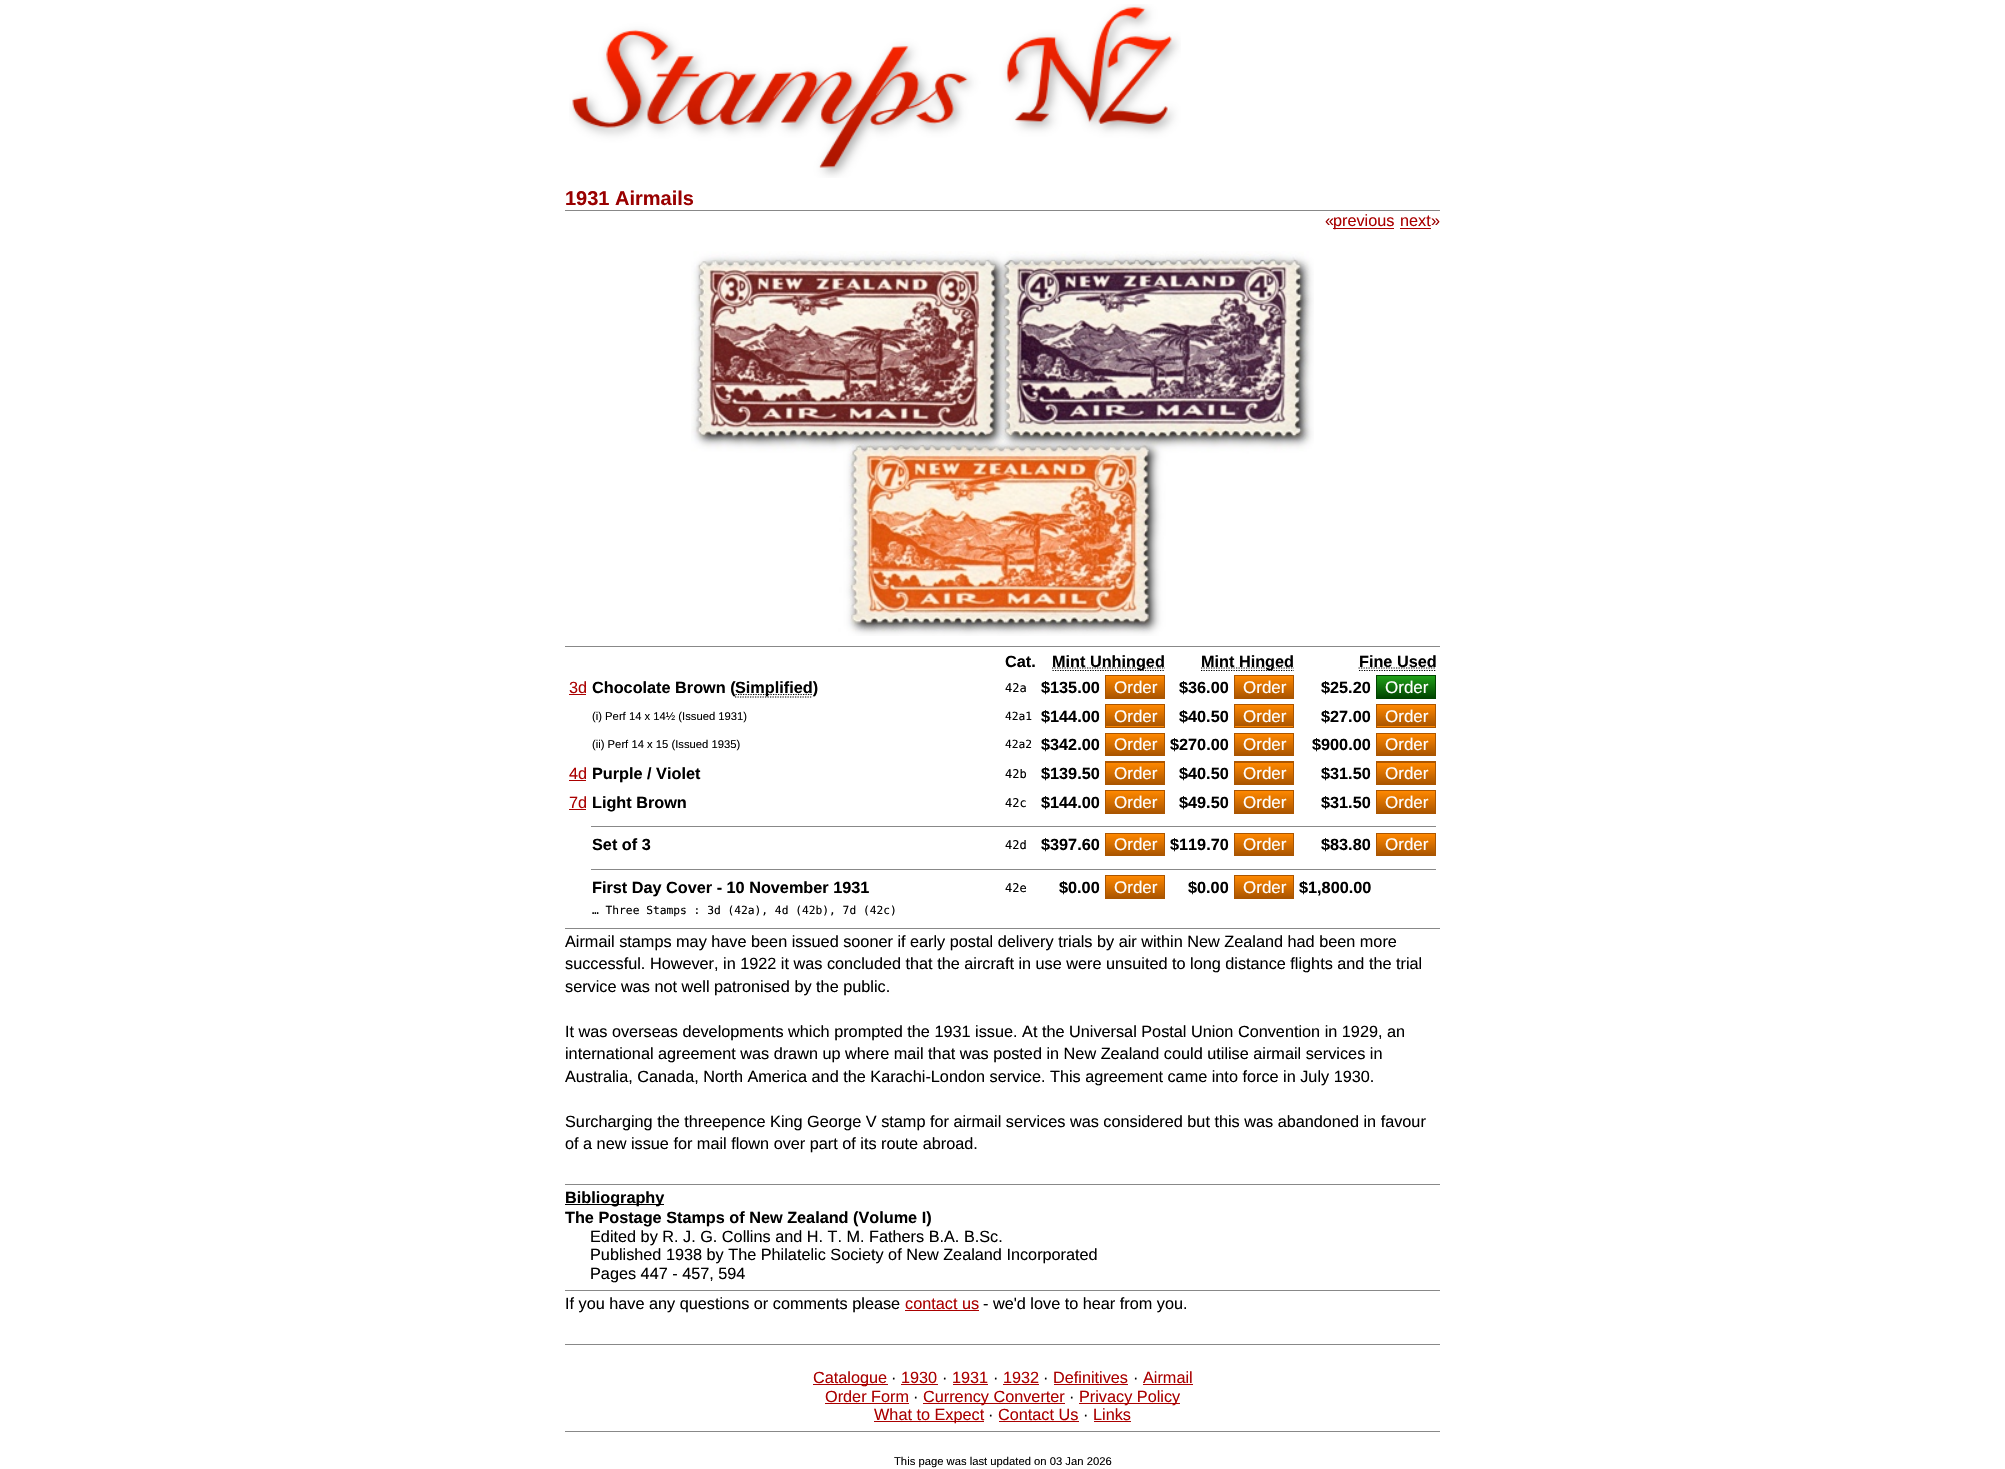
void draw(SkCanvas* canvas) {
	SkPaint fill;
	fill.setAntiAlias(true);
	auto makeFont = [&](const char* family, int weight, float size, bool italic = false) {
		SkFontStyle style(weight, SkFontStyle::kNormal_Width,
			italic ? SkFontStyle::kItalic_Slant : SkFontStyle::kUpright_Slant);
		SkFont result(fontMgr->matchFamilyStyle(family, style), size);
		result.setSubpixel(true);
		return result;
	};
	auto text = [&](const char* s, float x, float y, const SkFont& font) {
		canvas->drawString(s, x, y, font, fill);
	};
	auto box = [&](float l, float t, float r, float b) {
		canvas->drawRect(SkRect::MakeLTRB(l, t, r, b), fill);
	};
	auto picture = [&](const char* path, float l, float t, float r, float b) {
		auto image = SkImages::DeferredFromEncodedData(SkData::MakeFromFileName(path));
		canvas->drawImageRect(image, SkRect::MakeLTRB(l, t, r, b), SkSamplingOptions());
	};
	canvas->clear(0xFFFFFFFF);
	picture("image0.png", 569, 4, 1181, 178);
	fill.setColor(0xFF888888);
	box(565, 210, 1440, 211);
	fill.setColor(0xFFAA0000);
	box(1333, 228, 1394, 229);
	box(1400, 228, 1431, 229);
	picture("image1.png", 691, 251, 1314, 636);
	fill.setColor(0xFF888888);
	box(565, 646, 1440, 647);
	fill.setStyle(SkPaint::kStroke_Style);
	fill.setStrokeWidth(1.2f);
	fill.setColor(0xFF000000);
	fill.setPathEffect(SkDashPathEffect::Make({{1.25f, 1.25f}}, 0));
	canvas->drawPath(SkPathBuilder().moveTo(1052.5f, 670.5f).lineTo(1165, 670.5f).detach(), fill);
	fill.setPathEffect(nullptr);
	fill.setPathEffect(SkDashPathEffect::Make({{1.25f, 1.25f}}, 0));
	canvas->drawPath(SkPathBuilder().moveTo(1052, 668).lineTo(1165, 668).detach(), fill);
	fill.setPathEffect(nullptr);
	fill.setPathEffect(SkDashPathEffect::Make({{1.25f, 1.25f}}, 0));
	canvas->drawPath(SkPathBuilder().moveTo(1201, 670.5f).lineTo(1294, 670.5f).detach(), fill);
	fill.setPathEffect(nullptr);
	fill.setPathEffect(SkDashPathEffect::Make({{1.25f, 1.25f}}, 0));
	canvas->drawPath(SkPathBuilder().moveTo(1201, 668).lineTo(1294, 668).detach(), fill);
	fill.setPathEffect(nullptr);
	fill.setPathEffect(SkDashPathEffect::Make({{1.25f, 1.25f}}, 0));
	canvas->drawPath(SkPathBuilder().moveTo(1359, 670.5f).lineTo(1436, 670.5f).detach(), fill);
	fill.setPathEffect(nullptr);
	fill.setPathEffect(SkDashPathEffect::Make({{1.25f, 1.25f}}, 0));
	canvas->drawPath(SkPathBuilder().moveTo(1358.5f, 668).lineTo(1436, 668).detach(), fill);
	fill.setPathEffect(nullptr);
	fill.setStyle(SkPaint::kFill_Style);
	fill.setColor(0xFFAA0000);
	box(569, 694, 586, 695);
	fill.setStyle(SkPaint::kStroke_Style);
	fill.setColor(0xFF000000);
	fill.setPathEffect(SkDashPathEffect::Make({{1.25f, 1.25f}}, 0));
	canvas->drawPath(SkPathBuilder().moveTo(735, 697).lineTo(812.5f, 697).detach(), fill);
	fill.setPathEffect(nullptr);
	fill.setPathEffect(SkDashPathEffect::Make({{1.25f, 1.25f}}, 0));
	canvas->drawPath(SkPathBuilder().moveTo(735.5f, 694.5f).lineTo(813, 694.5f).detach(), fill);
	fill.setPathEffect(nullptr);
	fill.setStyle(SkPaint::kFill_Style);
	{
		const SkColor colors[] = {0xFFFF8800, 0xFFAA5500};
		const float stops[] = {0, 1};
		const SkPoint ends[] = {{1135, 676}, {1135, 698}};
		fill.setShader(SkGradientShader::MakeLinear(ends, colors, stops, 2, SkTileMode::kClamp));
		fill.setAlpha(255);
	}
	box(1106, 676, 1164, 698);
	fill.setStyle(SkPaint::kStroke_Style);
	fill.setStrokeWidth(1);
	fill.setShader(nullptr);
	fill.setColor(0xFFAA5500);
	canvas->drawRect(SkRect::MakeLTRB(1105.5f, 675.5f, 1164.5f, 698.5f), fill);
	fill.setStyle(SkPaint::kFill_Style);
	{
		const SkColor colors[] = {0xFFFF8800, 0xFFAA5500};
		const float stops[] = {0, 1};
		const SkPoint ends[] = {{1264, 676}, {1264, 698}};
		fill.setShader(SkGradientShader::MakeLinear(ends, colors, stops, 2, SkTileMode::kClamp));
		fill.setAlpha(255);
	}
	box(1235, 676, 1293, 698);
	fill.setStyle(SkPaint::kStroke_Style);
	fill.setShader(nullptr);
	fill.setColor(0xFFAA5500);
	canvas->drawRect(SkRect::MakeLTRB(1234.5f, 675.5f, 1293.5f, 698.5f), fill);
	fill.setStyle(SkPaint::kFill_Style);
	{
		const SkColor colors[] = {0xFF20A018, 0xFF004400};
		const float stops[] = {0, 1};
		const SkPoint ends[] = {{1406, 676}, {1406, 698}};
		fill.setShader(SkGradientShader::MakeLinear(ends, colors, stops, 2, SkTileMode::kClamp));
		fill.setAlpha(255);
	}
	box(1377, 676, 1435, 698);
	fill.setStyle(SkPaint::kStroke_Style);
	fill.setShader(nullptr);
	fill.setColor(0xFF004400);
	canvas->drawRect(SkRect::MakeLTRB(1376.5f, 675.5f, 1435.5f, 698.5f), fill);
	fill.setStyle(SkPaint::kFill_Style);
	{
		const SkColor colors[] = {0xFFFF8800, 0xFFAA5500};
		const float stops[] = {0, 1};
		const SkPoint ends[] = {{1135, 705}, {1135, 726}};
		fill.setShader(SkGradientShader::MakeLinear(ends, colors, stops, 2, SkTileMode::kClamp));
		fill.setAlpha(255);
	}
	box(1106, 705, 1164, 726);
	{
		const SkColor colors[] = {0xFFFF8800, 0xFFAA5500};
		const float stops[] = {0, 1};
		const SkPoint ends[] = {{1135, 726}, {1135, 748}};
		fill.setShader(SkGradientShader::MakeLinear(ends, colors, stops, 2, SkTileMode::kClamp));
		fill.setAlpha(255);
	}
	box(1105, 726, 1165, 727);
	fill.setStyle(SkPaint::kStroke_Style);
	fill.setShader(nullptr);
	fill.setColor(0xFFAA5500);
	canvas->drawRect(SkRect::MakeLTRB(1105.5f, 704.5f, 1164.5f, 727.5f), fill);
	fill.setStyle(SkPaint::kFill_Style);
	{
		const SkColor colors[] = {0xFFFF8800, 0xFFAA5500};
		const float stops[] = {0, 1};
		const SkPoint ends[] = {{1264, 705}, {1264, 726}};
		fill.setShader(SkGradientShader::MakeLinear(ends, colors, stops, 2, SkTileMode::kClamp));
		fill.setAlpha(255);
	}
	box(1235, 705, 1293, 726);
	{
		const SkColor colors[] = {0xFFFF8800, 0xFFAA5500};
		const float stops[] = {0, 1};
		const SkPoint ends[] = {{1264, 726}, {1264, 748}};
		fill.setShader(SkGradientShader::MakeLinear(ends, colors, stops, 2, SkTileMode::kClamp));
		fill.setAlpha(255);
	}
	box(1234, 726, 1294, 727);
	fill.setStyle(SkPaint::kStroke_Style);
	fill.setShader(nullptr);
	fill.setColor(0xFFAA5500);
	canvas->drawRect(SkRect::MakeLTRB(1234.5f, 704.5f, 1293.5f, 727.5f), fill);
	fill.setStyle(SkPaint::kFill_Style);
	{
		const SkColor colors[] = {0xFFFF8800, 0xFFAA5500};
		const float stops[] = {0, 1};
		const SkPoint ends[] = {{1406, 705}, {1406, 726}};
		fill.setShader(SkGradientShader::MakeLinear(ends, colors, stops, 2, SkTileMode::kClamp));
		fill.setAlpha(255);
	}
	box(1377, 705, 1435, 726);
	{
		const SkColor colors[] = {0xFFFF8800, 0xFFAA5500};
		const float stops[] = {0, 1};
		const SkPoint ends[] = {{1406, 726}, {1406, 748}};
		fill.setShader(SkGradientShader::MakeLinear(ends, colors, stops, 2, SkTileMode::kClamp));
		fill.setAlpha(255);
	}
	box(1376, 726, 1436, 727);
	fill.setStyle(SkPaint::kStroke_Style);
	fill.setShader(nullptr);
	fill.setColor(0xFFAA5500);
	canvas->drawRect(SkRect::MakeLTRB(1376.5f, 704.5f, 1435.5f, 727.5f), fill);
	fill.setStyle(SkPaint::kFill_Style);
	{
		const SkColor colors[] = {0xFFFF8800, 0xFFAA5500};
		const float stops[] = {0, 1};
		const SkPoint ends[] = {{1135, 734}, {1135, 755}};
		fill.setShader(SkGradientShader::MakeLinear(ends, colors, stops, 2, SkTileMode::kClamp));
		fill.setAlpha(255);
	}
	box(1106, 734, 1164, 755);
	fill.setStyle(SkPaint::kStroke_Style);
	fill.setShader(nullptr);
	fill.setColor(0xFFAA5500);
	canvas->drawRect(SkRect::MakeLTRB(1105.5f, 733.5f, 1164.5f, 755.5f), fill);
	fill.setStyle(SkPaint::kFill_Style);
	{
		const SkColor colors[] = {0xFFFF8800, 0xFFAA5500};
		const float stops[] = {0, 1};
		const SkPoint ends[] = {{1264, 734}, {1264, 755}};
		fill.setShader(SkGradientShader::MakeLinear(ends, colors, stops, 2, SkTileMode::kClamp));
		fill.setAlpha(255);
	}
	box(1235, 734, 1293, 755);
	fill.setStyle(SkPaint::kStroke_Style);
	fill.setShader(nullptr);
	fill.setColor(0xFFAA5500);
	canvas->drawRect(SkRect::MakeLTRB(1234.5f, 733.5f, 1293.5f, 755.5f), fill);
	fill.setStyle(SkPaint::kFill_Style);
	{
		const SkColor colors[] = {0xFFFF8800, 0xFFAA5500};
		const float stops[] = {0, 1};
		const SkPoint ends[] = {{1406, 734}, {1406, 755}};
		fill.setShader(SkGradientShader::MakeLinear(ends, colors, stops, 2, SkTileMode::kClamp));
		fill.setAlpha(255);
	}
	box(1377, 734, 1435, 755);
	fill.setStyle(SkPaint::kStroke_Style);
	fill.setShader(nullptr);
	fill.setColor(0xFFAA5500);
	canvas->drawRect(SkRect::MakeLTRB(1376.5f, 733.5f, 1435.5f, 755.5f), fill);
	fill.setStyle(SkPaint::kFill_Style);
	fill.setColor(0xFFAA0000);
	box(569, 780, 586, 781);
	{
		const SkColor colors[] = {0xFFFF8800, 0xFFAA5500};
		const float stops[] = {0, 1};
		const SkPoint ends[] = {{1135, 741}, {1135, 763}};
		fill.setShader(SkGradientShader::MakeLinear(ends, colors, stops, 2, SkTileMode::kClamp));
		fill.setAlpha(255);
	}
	box(1105, 762, 1165, 763);
	{
		const SkColor colors[] = {0xFFFF8800, 0xFFAA5500};
		const float stops[] = {0, 1};
		const SkPoint ends[] = {{1135, 763}, {1135, 784}};
		fill.setShader(SkGradientShader::MakeLinear(ends, colors, stops, 2, SkTileMode::kClamp));
		fill.setAlpha(255);
	}
	box(1106, 763, 1164, 784);
	fill.setStyle(SkPaint::kStroke_Style);
	fill.setShader(nullptr);
	fill.setColor(0xFFAA5500);
	canvas->drawRect(SkRect::MakeLTRB(1105.5f, 761.5f, 1164.5f, 784.5f), fill);
	fill.setStyle(SkPaint::kFill_Style);
	{
		const SkColor colors[] = {0xFFFF8800, 0xFFAA5500};
		const float stops[] = {0, 1};
		const SkPoint ends[] = {{1264, 741}, {1264, 763}};
		fill.setShader(SkGradientShader::MakeLinear(ends, colors, stops, 2, SkTileMode::kClamp));
		fill.setAlpha(255);
	}
	box(1234, 762, 1294, 763);
	{
		const SkColor colors[] = {0xFFFF8800, 0xFFAA5500};
		const float stops[] = {0, 1};
		const SkPoint ends[] = {{1264, 763}, {1264, 784}};
		fill.setShader(SkGradientShader::MakeLinear(ends, colors, stops, 2, SkTileMode::kClamp));
		fill.setAlpha(255);
	}
	box(1235, 763, 1293, 784);
	fill.setStyle(SkPaint::kStroke_Style);
	fill.setShader(nullptr);
	fill.setColor(0xFFAA5500);
	canvas->drawRect(SkRect::MakeLTRB(1234.5f, 761.5f, 1293.5f, 784.5f), fill);
	fill.setStyle(SkPaint::kFill_Style);
	{
		const SkColor colors[] = {0xFFFF8800, 0xFFAA5500};
		const float stops[] = {0, 1};
		const SkPoint ends[] = {{1406, 741}, {1406, 763}};
		fill.setShader(SkGradientShader::MakeLinear(ends, colors, stops, 2, SkTileMode::kClamp));
		fill.setAlpha(255);
	}
	box(1376, 762, 1436, 763);
	{
		const SkColor colors[] = {0xFFFF8800, 0xFFAA5500};
		const float stops[] = {0, 1};
		const SkPoint ends[] = {{1406, 763}, {1406, 784}};
		fill.setShader(SkGradientShader::MakeLinear(ends, colors, stops, 2, SkTileMode::kClamp));
		fill.setAlpha(255);
	}
	box(1377, 763, 1435, 784);
	fill.setStyle(SkPaint::kStroke_Style);
	fill.setShader(nullptr);
	fill.setColor(0xFFAA5500);
	canvas->drawRect(SkRect::MakeLTRB(1376.5f, 761.5f, 1435.5f, 784.5f), fill);
	fill.setStyle(SkPaint::kFill_Style);
	fill.setColor(0xFFAA0000);
	box(569, 809, 586, 810);
	{
		const SkColor colors[] = {0xFFFF8800, 0xFFAA5500};
		const float stops[] = {0, 1};
		const SkPoint ends[] = {{1135, 791}, {1135, 813}};
		fill.setShader(SkGradientShader::MakeLinear(ends, colors, stops, 2, SkTileMode::kClamp));
		fill.setAlpha(255);
	}
	box(1106, 791, 1164, 813);
	fill.setStyle(SkPaint::kStroke_Style);
	fill.setShader(nullptr);
	fill.setColor(0xFFAA5500);
	canvas->drawRect(SkRect::MakeLTRB(1105.5f, 790.5f, 1164.5f, 813.5f), fill);
	fill.setStyle(SkPaint::kFill_Style);
	{
		const SkColor colors[] = {0xFFFF8800, 0xFFAA5500};
		const float stops[] = {0, 1};
		const SkPoint ends[] = {{1264, 791}, {1264, 813}};
		fill.setShader(SkGradientShader::MakeLinear(ends, colors, stops, 2, SkTileMode::kClamp));
		fill.setAlpha(255);
	}
	box(1235, 791, 1293, 813);
	fill.setStyle(SkPaint::kStroke_Style);
	fill.setShader(nullptr);
	fill.setColor(0xFFAA5500);
	canvas->drawRect(SkRect::MakeLTRB(1234.5f, 790.5f, 1293.5f, 813.5f), fill);
	fill.setStyle(SkPaint::kFill_Style);
	{
		const SkColor colors[] = {0xFFFF8800, 0xFFAA5500};
		const float stops[] = {0, 1};
		const SkPoint ends[] = {{1406, 791}, {1406, 813}};
		fill.setShader(SkGradientShader::MakeLinear(ends, colors, stops, 2, SkTileMode::kClamp));
		fill.setAlpha(255);
	}
	box(1377, 791, 1435, 813);
	fill.setStyle(SkPaint::kStroke_Style);
	fill.setShader(nullptr);
	fill.setColor(0xFFAA5500);
	canvas->drawRect(SkRect::MakeLTRB(1376.5f, 790.5f, 1435.5f, 813.5f), fill);
	fill.setStyle(SkPaint::kFill_Style);
	fill.setColor(0xFF888888);
	box(591, 826, 1436, 827);
	{
		const SkColor colors[] = {0xFFFF8800, 0xFFAA5500};
		const float stops[] = {0, 1};
		const SkPoint ends[] = {{1135, 834}, {1135, 855}};
		fill.setShader(SkGradientShader::MakeLinear(ends, colors, stops, 2, SkTileMode::kClamp));
		fill.setAlpha(255);
	}
	box(1106, 834, 1164, 855);
	fill.setStyle(SkPaint::kStroke_Style);
	fill.setShader(nullptr);
	fill.setColor(0xFFAA5500);
	canvas->drawRect(SkRect::MakeLTRB(1105.5f, 833.5f, 1164.5f, 855.5f), fill);
	fill.setStyle(SkPaint::kFill_Style);
	{
		const SkColor colors[] = {0xFFFF8800, 0xFFAA5500};
		const float stops[] = {0, 1};
		const SkPoint ends[] = {{1264, 834}, {1264, 855}};
		fill.setShader(SkGradientShader::MakeLinear(ends, colors, stops, 2, SkTileMode::kClamp));
		fill.setAlpha(255);
	}
	box(1235, 834, 1293, 855);
	fill.setStyle(SkPaint::kStroke_Style);
	fill.setShader(nullptr);
	fill.setColor(0xFFAA5500);
	canvas->drawRect(SkRect::MakeLTRB(1234.5f, 833.5f, 1293.5f, 855.5f), fill);
	fill.setStyle(SkPaint::kFill_Style);
	{
		const SkColor colors[] = {0xFFFF8800, 0xFFAA5500};
		const float stops[] = {0, 1};
		const SkPoint ends[] = {{1406, 834}, {1406, 855}};
		fill.setShader(SkGradientShader::MakeLinear(ends, colors, stops, 2, SkTileMode::kClamp));
		fill.setAlpha(255);
	}
	box(1377, 834, 1435, 855);
	fill.setStyle(SkPaint::kStroke_Style);
	fill.setShader(nullptr);
	fill.setColor(0xFFAA5500);
	canvas->drawRect(SkRect::MakeLTRB(1376.5f, 833.5f, 1435.5f, 855.5f), fill);
	fill.setStyle(SkPaint::kFill_Style);
	fill.setColor(0xFF888888);
	box(591, 869, 1436, 870);
	{
		const SkColor colors[] = {0xFFFF8800, 0xFFAA5500};
		const float stops[] = {0, 1};
		const SkPoint ends[] = {{1135, 876}, {1135, 898}};
		fill.setShader(SkGradientShader::MakeLinear(ends, colors, stops, 2, SkTileMode::kClamp));
		fill.setAlpha(255);
	}
	box(1106, 876, 1164, 898);
	fill.setStyle(SkPaint::kStroke_Style);
	fill.setShader(nullptr);
	fill.setColor(0xFFAA5500);
	canvas->drawRect(SkRect::MakeLTRB(1105.5f, 875.5f, 1164.5f, 898.5f), fill);
	fill.setStyle(SkPaint::kFill_Style);
	{
		const SkColor colors[] = {0xFFFF8800, 0xFFAA5500};
		const float stops[] = {0, 1};
		const SkPoint ends[] = {{1264, 876}, {1264, 898}};
		fill.setShader(SkGradientShader::MakeLinear(ends, colors, stops, 2, SkTileMode::kClamp));
		fill.setAlpha(255);
	}
	box(1235, 876, 1293, 898);
	fill.setStyle(SkPaint::kStroke_Style);
	fill.setShader(nullptr);
	fill.setColor(0xFFAA5500);
	canvas->drawRect(SkRect::MakeLTRB(1234.5f, 875.5f, 1293.5f, 898.5f), fill);
	fill.setStyle(SkPaint::kFill_Style);
	fill.setColor(0xFF888888);
	box(565, 928, 1440, 929);
	box(565, 1184, 1440, 1185);
	fill.setColor(0xFF000000);
	box(565, 1204, 664, 1205);
	fill.setColor(0xFF888888);
	box(565, 1290, 1440, 1291);
	fill.setColor(0xFFAA0000);
	box(905, 1310, 979, 1311);
	fill.setColor(0xFF888888);
	box(565, 1344, 1440, 1345);
	fill.setColor(0xFFAA0000);
	box(813, 1384, 888, 1385);
	box(901, 1384, 938, 1385);
	box(953, 1384, 988, 1385);
	box(1003, 1384, 1039, 1385);
	box(1054, 1384, 1128, 1385);
	box(1143, 1384, 1193, 1385);
	box(825, 1403, 909, 1404);
	box(923, 1403, 1065, 1404);
	box(1079, 1403, 1180, 1404);
	box(874, 1421, 984, 1422);
	box(999, 1421, 1079, 1422);
	box(1094, 1421, 1131, 1422);
	fill.setColor(0xFF888888);
	box(565, 1431, 1440, 1432);
	auto font1 = makeFont("Liberation Sans", 700, 20);
	fill.setColor(0xFF990000);
	text("1931 Airmails", 565, 205, font1);
	auto font2 = makeFont("Liberation Sans", 400, 16.25f);
	text("«", 1325, 226, font2);
	fill.setColor(0xFFAA0000);
	text("previous", 1333, 226, font2);
	text("next", 1400, 226, font2);
	fill.setColor(0xFF990000);
	text("»", 1431, 226, font2);
	auto font3 = makeFont("Liberation Sans", 700, 16.25f);
	fill.setColor(0xFF000000);
	text("Cat.", 1005, 667, font3);
	text("Mint Unhinged", 1052, 667, font3);
	text("Mint Hinged", 1201, 667, font3);
	text("Fine Used", 1359, 667, font3);
	fill.setColor(0xFFAA0000);
	text("3d", 569, 693, font2);
	fill.setColor(0xFF000000);
	text("Chocolate Brown (", 592, 693, font3);
	text("Simplified)", 735, 693, font3);
	auto font4 = makeFont("DejaVu Sans Mono", 400, 12);
	text("42a", 1005, 692, font4);
	text("$135.00", 1041, 693, font3);
	auto font5 = makeFont("Liberation Sans", 400, 17);
	fill.setColor(0xFFFFFFFF);
	text("Order", 1114, 693, font5);
	fill.setColor(0xFF000000);
	text("$36.00", 1179, 693, font3);
	fill.setColor(0xFFFFFFFF);
	text("Order", 1243, 693, font5);
	fill.setColor(0xFF000000);
	text("$25.20", 1321, 693, font3);
	fill.setColor(0xFFFFFFFF);
	text("Order", 1385, 693, font5);
	auto font6 = makeFont("Liberation Sans", 400, 11.25f);
	fill.setColor(0xFF000000);
	text("(i) Perf 14 x 14½ (Issued 1931)", 592, 720, font6);
	auto font7 = makeFont("DejaVu Sans Mono", 400, 11.25f);
	text("42a1", 1005, 720, font7);
	text("$144.00", 1041, 722, font3);
	fill.setColor(0xFFFFFFFF);
	text("Order", 1114, 722, font5);
	fill.setColor(0xFF000000);
	text("$40.50", 1179, 722, font3);
	fill.setColor(0xFFFFFFFF);
	text("Order", 1243, 722, font5);
	fill.setColor(0xFF000000);
	text("$27.00", 1321, 722, font3);
	fill.setColor(0xFFFFFFFF);
	text("Order", 1385, 722, font5);
	fill.setColor(0xFF000000);
	text("(ii) Perf 14 x 15 (Issued 1935)", 592, 748, font6);
	text("42a2", 1005, 748, font7);
	text("$342.00", 1041, 750, font3);
	fill.setColor(0xFFFFFFFF);
	text("Order", 1114, 750, font5);
	fill.setColor(0xFF000000);
	text("$270.00", 1170, 750, font3);
	fill.setColor(0xFFFFFFFF);
	text("Order", 1243, 750, font5);
	fill.setColor(0xFF000000);
	text("$900.00", 1312, 750, font3);
	fill.setColor(0xFFFFFFFF);
	text("Order", 1385, 750, font5);
	fill.setColor(0xFFAA0000);
	text("4d", 569, 779, font2);
	fill.setColor(0xFF000000);
	text("Purple / Violet", 592, 779, font3);
	text("42b", 1005, 778, font4);
	text("$139.50", 1041, 779, font3);
	fill.setColor(0xFFFFFFFF);
	text("Order", 1114, 779, font5);
	fill.setColor(0xFF000000);
	text("$40.50", 1179, 779, font3);
	fill.setColor(0xFFFFFFFF);
	text("Order", 1243, 779, font5);
	fill.setColor(0xFF000000);
	text("$31.50", 1321, 779, font3);
	fill.setColor(0xFFFFFFFF);
	text("Order", 1385, 779, font5);
	fill.setColor(0xFFAA0000);
	text("7d", 569, 808, font2);
	fill.setColor(0xFF000000);
	text("Light Brown", 592, 808, font3);
	text("42c", 1005, 807, font4);
	text("$144.00", 1041, 808, font3);
	fill.setColor(0xFFFFFFFF);
	text("Order", 1114, 808, font5);
	fill.setColor(0xFF000000);
	text("$49.50", 1179, 808, font3);
	fill.setColor(0xFFFFFFFF);
	text("Order", 1243, 808, font5);
	fill.setColor(0xFF000000);
	text("$31.50", 1321, 808, font3);
	fill.setColor(0xFFFFFFFF);
	text("Order", 1385, 808, font5);
	fill.setColor(0xFF000000);
	text("Set of 3", 592, 850, font3);
	text("42d", 1005, 849, font4);
	text("$397.60", 1041, 850, font3);
	fill.setColor(0xFFFFFFFF);
	text("Order", 1114, 850, font5);
	fill.setColor(0xFF000000);
	text("$119.70", 1170, 850, font3);
	fill.setColor(0xFFFFFFFF);
	text("Order", 1243, 850, font5);
	fill.setColor(0xFF000000);
	text("$83.80", 1321, 850, font3);
	fill.setColor(0xFFFFFFFF);
	text("Order", 1385, 850, font5);
	fill.setColor(0xFF000000);
	text("First Day Cover - 10 November 1931", 592, 893, font3);
	text("42e", 1005, 892, font4);
	text("$0.00", 1059, 893, font3);
	fill.setColor(0xFFFFFFFF);
	text("Order", 1114, 893, font5);
	fill.setColor(0xFF000000);
	text("$0.00", 1188, 893, font3);
	fill.setColor(0xFFFFFFFF);
	text("Order", 1243, 893, font5);
	fill.setColor(0xFF000000);
	text("$1,800.00", 1299, 893, font3);
	text("… Three Stamps : 3d (42a), 4d (42b), 7d (42c)", 592, 914, font7);
	text("Airmail stamps may have been issued sooner if early postal delivery trials by air within New Zealand had been more", 565, 947, font2);
	text("successful. However, in 1922 it was concluded that the aircraft in use were unsuited to long distance flights and the trial", 565, 969, font2);
	text("service was not well patronised by the public.", 565, 992, font2);
	text("It was overseas developments which prompted the 1931 issue. At the Universal Postal Union Convention in 1929, an", 565, 1037, font2);
	text("international agreement was drawn up where mail that was posted in New Zealand could utilise airmail services in", 565, 1059, font2);
	text("Australia, Canada, North America and the Karachi-London service. This agreement came into force in July 1930.", 565, 1082, font2);
	text("Surcharging the threepence King George V stamp for airmail services was considered but this was abandoned in favour", 565, 1127, font2);
	text("of a new issue for mail flown over part of its route abroad.", 565, 1149, font2);
	text("Bibliography", 565, 1203, font3);
	text("The Postage Stamps of New Zealand (Volume I)", 565, 1223, font3);
	text("Edited by R. J. G. Collins and H. T. M. Fathers B.A. B.Sc.", 590, 1242, font2);
	text("Published 1938 by The Philatelic Society of New Zealand Incorporated", 590, 1260, font2);
	text("Pages 447 - 457, 594", 590, 1279, font2);
	text("If you have any questions or comments please", 565, 1309, font2);
	fill.setColor(0xFFAA0000);
	text("contact us", 905, 1309, font2);
	fill.setColor(0xFF000000);
	text("- we'd love to hear from you.", 983, 1309, font2);
	fill.setColor(0xFFAA0000);
	text("Catalogue", 813, 1383, font2);
	fill.setColor(0xFF000000);
	text("·", 891, 1383, font2);
	fill.setColor(0xFFAA0000);
	text("1930", 901, 1383, font2);
	fill.setColor(0xFF000000);
	text("·", 942, 1383, font2);
	fill.setColor(0xFFAA0000);
	text("1931", 952, 1383, font2);
	fill.setColor(0xFF000000);
	text("·", 993, 1383, font2);
	fill.setColor(0xFFAA0000);
	text("1932", 1003, 1383, font2);
	fill.setColor(0xFF000000);
	text("·", 1043, 1383, font2);
	fill.setColor(0xFFAA0000);
	text("Definitives", 1053, 1383, font2);
	fill.setColor(0xFF000000);
	text("·", 1133, 1383, font2);
	fill.setColor(0xFFAA0000);
	text("Airmail", 1143, 1383, font2);
	text("Order Form", 825, 1402, font2);
	fill.setColor(0xFF000000);
	text("·", 913, 1402, font2);
	fill.setColor(0xFFAA0000);
	text("Currency Converter", 923, 1402, font2);
	fill.setColor(0xFF000000);
	text("·", 1069, 1402, font2);
	fill.setColor(0xFFAA0000);
	text("Privacy Policy", 1079, 1402, font2);
	text("What to Expect", 874, 1420, font2);
	fill.setColor(0xFF000000);
	text("·", 988, 1420, font2);
	fill.setColor(0xFFAA0000);
	text("Contact Us", 998, 1420, font2);
	fill.setColor(0xFF000000);
	text("·", 1083, 1420, font2);
	fill.setColor(0xFFAA0000);
	text("Links", 1093, 1420, font2);
	fill.setColor(0xFF000000);
	text("This page was last updated on 03 Jan 2026", 894, 1465, font6);
}
